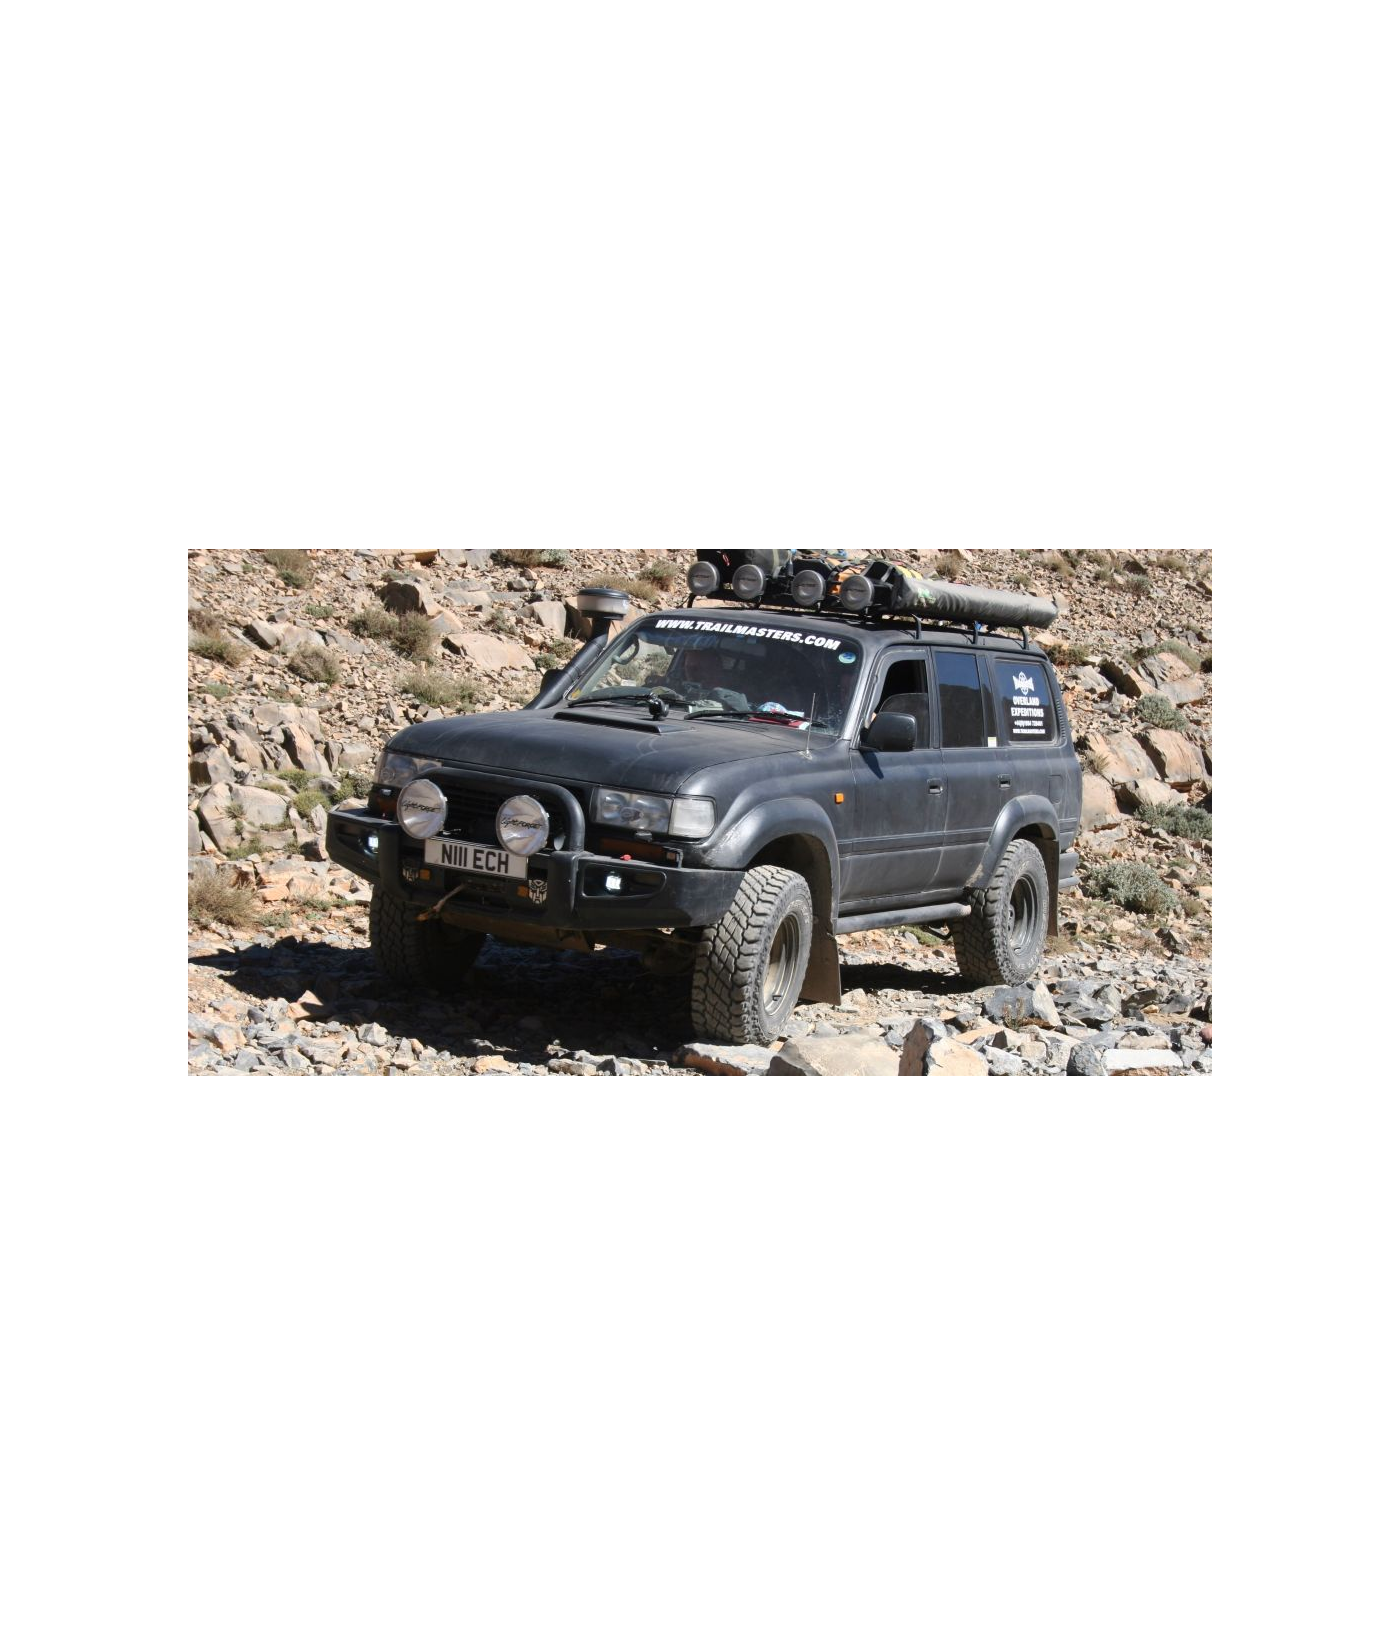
void draw(SkCanvas* canvas) {
	SkPaint fill;
	fill.setAntiAlias(true);
	auto picture = [&](const char* path, float l, float t, float r, float b) {
		auto image = SkImages::DeferredFromEncodedData(SkData::MakeFromFileName(path));
		canvas->drawImageRect(image, SkRect::MakeLTRB(l, t, r, b), SkSamplingOptions());
	};
	canvas->clear(0xFFFFFFFF);
	picture("image0.png", 188, 549, 1212, 1076);
}
